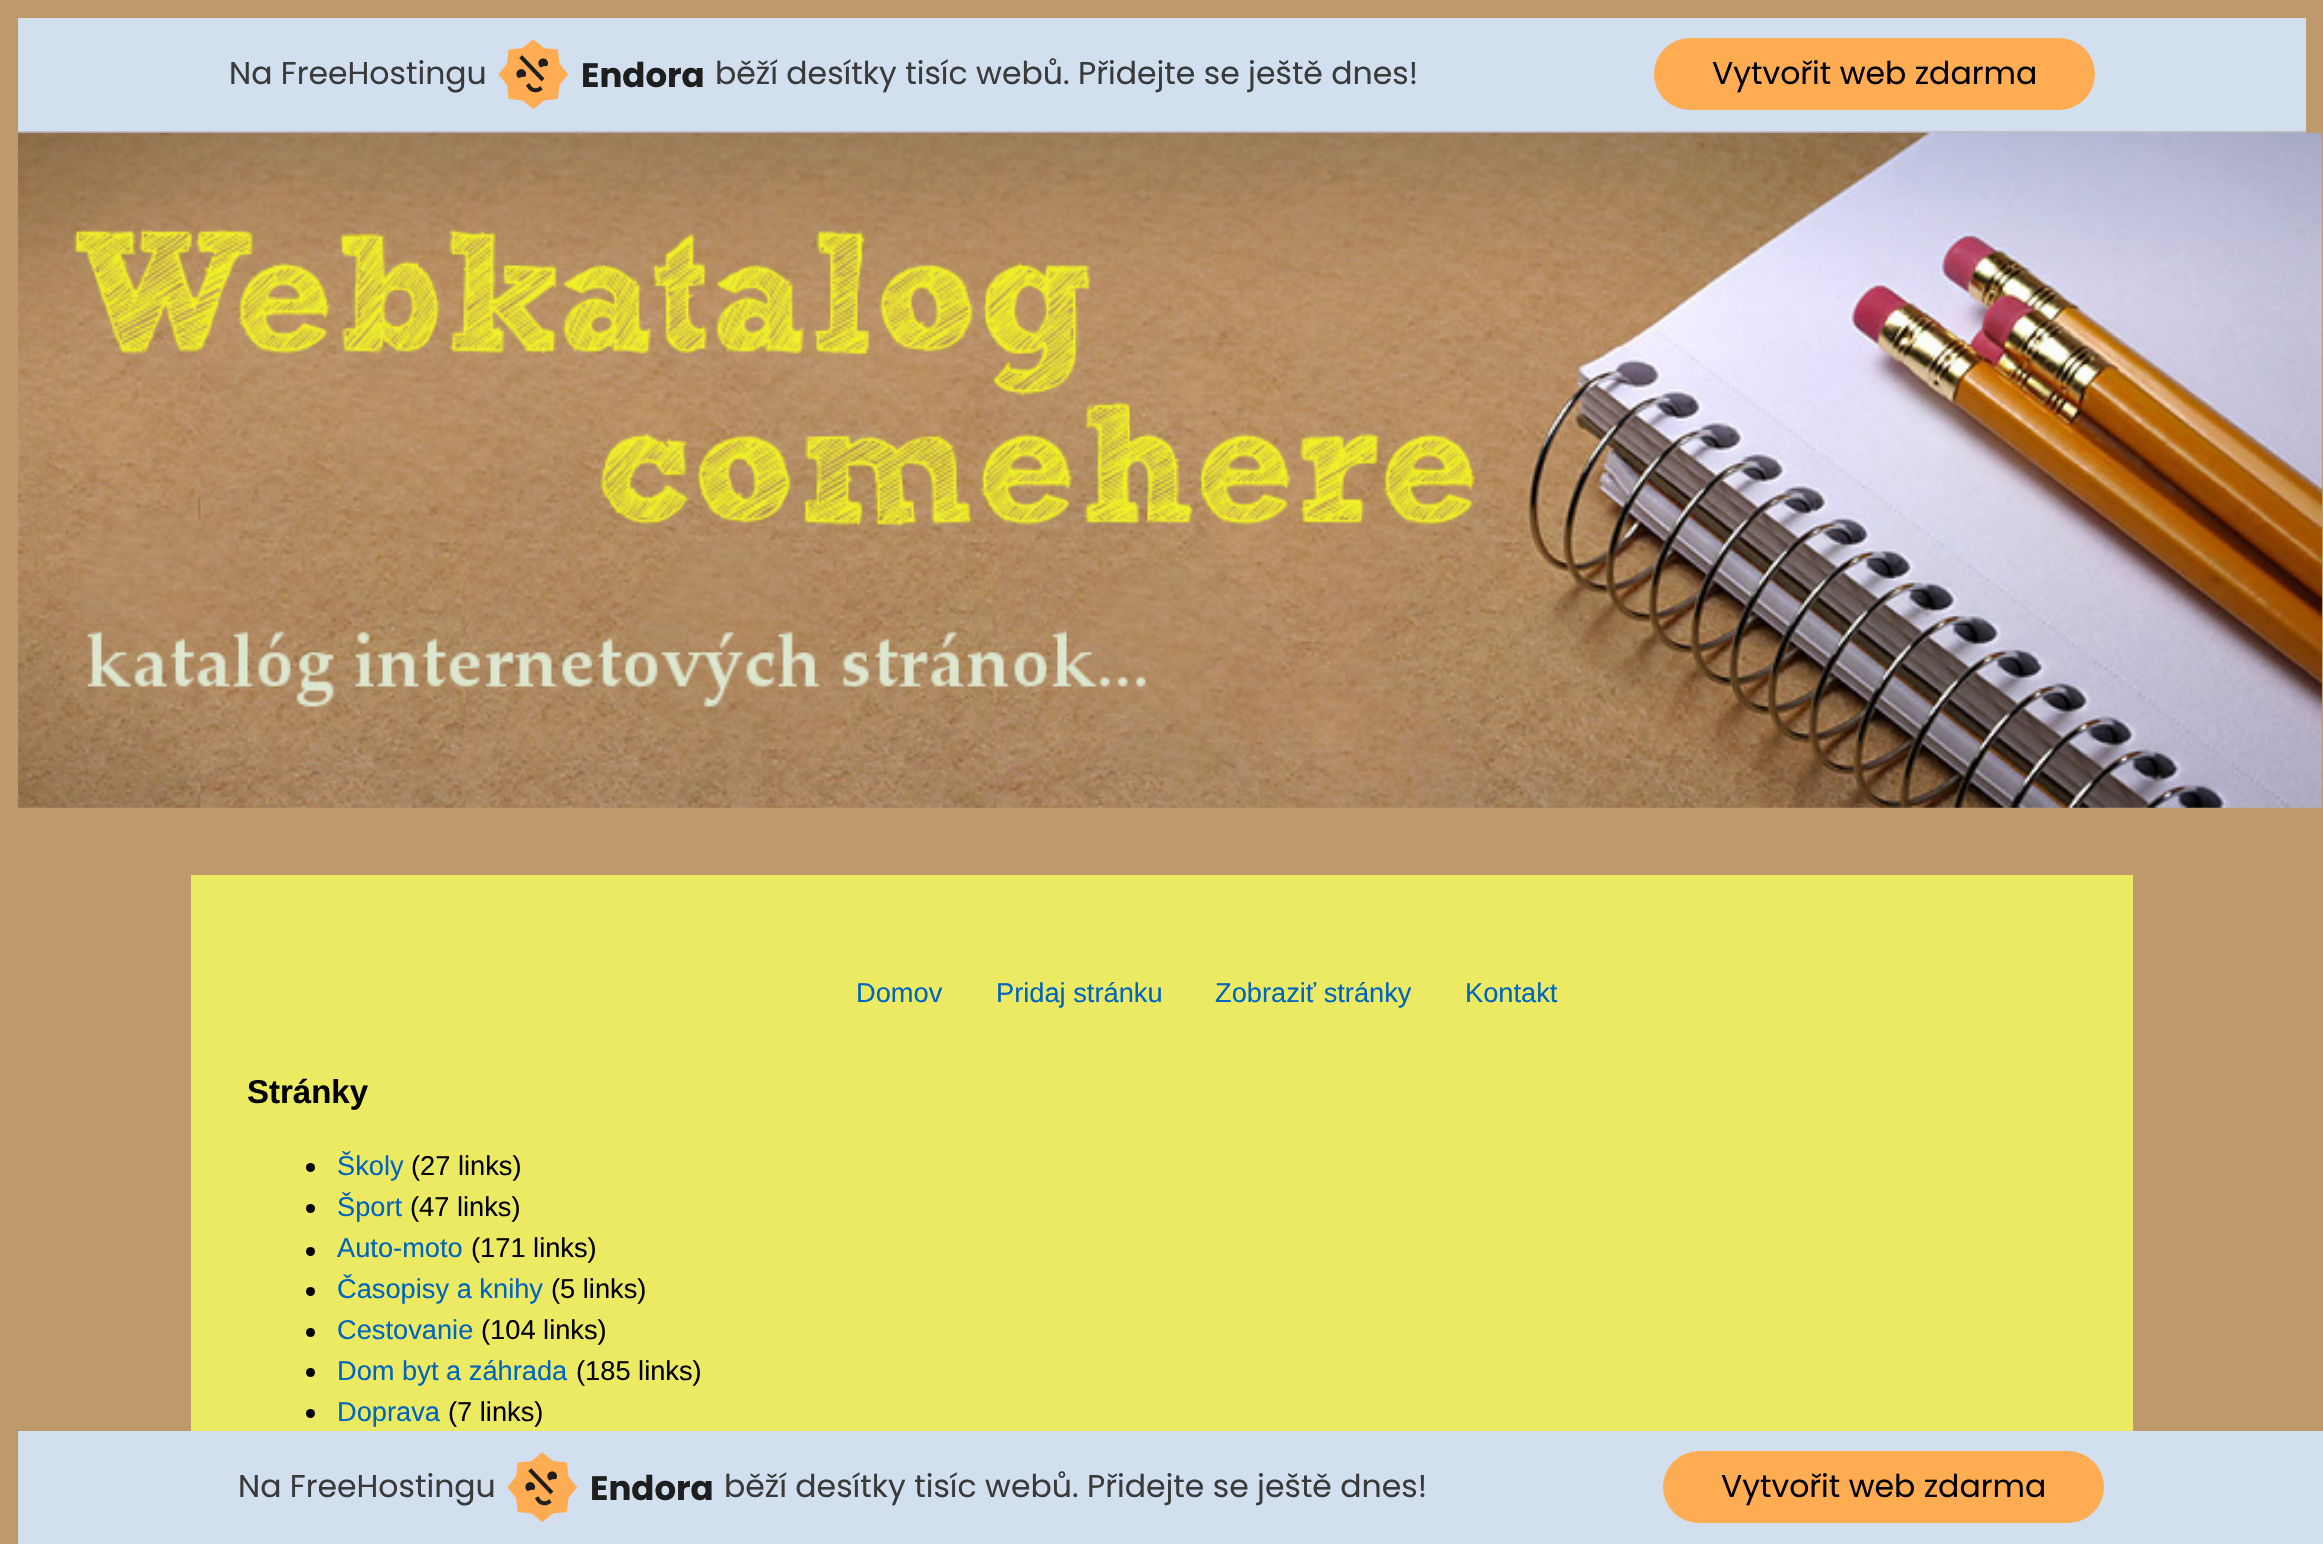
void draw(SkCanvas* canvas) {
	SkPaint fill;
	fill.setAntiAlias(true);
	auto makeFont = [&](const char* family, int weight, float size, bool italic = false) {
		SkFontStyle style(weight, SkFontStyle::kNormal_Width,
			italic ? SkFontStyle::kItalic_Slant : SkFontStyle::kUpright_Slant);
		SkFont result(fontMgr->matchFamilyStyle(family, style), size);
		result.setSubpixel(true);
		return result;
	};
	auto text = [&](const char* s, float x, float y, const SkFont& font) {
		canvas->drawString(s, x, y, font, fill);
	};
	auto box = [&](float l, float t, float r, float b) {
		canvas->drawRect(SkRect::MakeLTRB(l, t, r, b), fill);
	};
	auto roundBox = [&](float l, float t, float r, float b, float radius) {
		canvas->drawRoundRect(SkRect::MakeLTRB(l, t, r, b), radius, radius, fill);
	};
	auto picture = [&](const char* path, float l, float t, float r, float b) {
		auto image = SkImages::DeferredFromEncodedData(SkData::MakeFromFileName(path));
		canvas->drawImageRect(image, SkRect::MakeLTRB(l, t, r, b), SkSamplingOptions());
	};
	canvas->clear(0xFFBE996C);
	fill.setColor(0xFFD2DFEF);
	box(18, 18, 2306, 131);
	fill.setColor(0xFFBEBFC4);
	box(18, 131, 2306, 133);
	picture("image0.png", 498, 39, 569, 110);
	fill.setColor(0xFFFFAC52);
	roundBox(1654, 38, 2095, 110, 36);
	picture("image1.png", 18, 132, 2322, 808);
	fill.setColor(0xFFECEA62);
	box(191, 875, 2133, 1431);
	fill.setColor(0xFF000000);
	canvas->drawCircle(310.5f, 1167.5f, 4.5f, fill);
	canvas->drawCircle(310.5f, 1208.5f, 4.5f, fill);
	canvas->drawCircle(310.5f, 1251.5f, 4.5f, fill);
	canvas->drawCircle(310.5f, 1291.5f, 4.5f, fill);
	canvas->drawCircle(310.5f, 1332.5f, 4.5f, fill);
	canvas->drawCircle(310.5f, 1372.5f, 4.5f, fill);
	canvas->drawCircle(310.5f, 1413.5f, 4.5f, fill);
	fill.setColor(0xFFD2DFEF);
	box(18, 1431, 2323, 1544);
	picture("image0.png", 507, 1452, 578, 1523);
	fill.setColor(0xFFFFAC52);
	roundBox(1663, 1451, 2104, 1523, 36);
	auto font1 = makeFont("Poppins", 400, 31.5f);
	fill.setColor(0xFF3A3A3A);
	text("Na FreeHostingu", 229, 84, font1);
	auto font2 = makeFont("Poppins", 700, 34);
	fill.setColor(0xFF1E1E1E);
	text("Endora", 581, 87, font2);
	fill.setColor(0xFF3A3A3A);
	text("běží desítky tisíc webů. Přidejte se ještě dnes!", 715, 84, font1);
	fill.setColor(0xFF000000);
	text("Vytvořit web zdarma", 1712, 84, font1);
	auto font3 = makeFont("Liberation Sans", 400, 27.25f);
	fill.setColor(0xFF0065BF);
	text("Domov", 856, 1002, font3);
	text("Pridaj stránku", 996, 1002, font3);
	text("Zobraziť stránky", 1215, 1002, font3);
	text("Kontakt", 1465, 1002, font3);
	auto font4 = makeFont("Liberation Sans", 700, 33);
	fill.setColor(0xFF000000);
	text("Stránky", 247, 1103, font4);
	fill.setColor(0xFF0065BF);
	text("Školy", 337, 1175, font3);
	fill.setColor(0xFF000000);
	text("(27 links)", 411, 1175, font3);
	fill.setColor(0xFF0065BF);
	text("Šport", 337, 1216, font3);
	fill.setColor(0xFF000000);
	text("(47 links)", 410, 1216, font3);
	fill.setColor(0xFF0065BF);
	text("Auto-moto", 337, 1257, font3);
	fill.setColor(0xFF000000);
	text("(171 links)", 471, 1257, font3);
	fill.setColor(0xFF0065BF);
	text("Časopisy a knihy", 337, 1298, font3);
	fill.setColor(0xFF000000);
	text("(5 links)", 551, 1298, font3);
	fill.setColor(0xFF0065BF);
	text("Cestovanie", 337, 1339, font3);
	fill.setColor(0xFF000000);
	text("(104 links)", 481, 1339, font3);
	fill.setColor(0xFF0065BF);
	text("Dom byt a záhrada", 337, 1380, font3);
	fill.setColor(0xFF000000);
	text("(185 links)", 576, 1380, font3);
	fill.setColor(0xFF0065BF);
	text("Doprava", 337, 1421, font3);
	fill.setColor(0xFF000000);
	text("(7 links)", 448, 1421, font3);
	fill.setColor(0xFF3A3A3A);
	text("Na FreeHostingu", 238, 1497, font1);
	fill.setColor(0xFF1E1E1E);
	text("Endora", 590, 1500, font2);
	fill.setColor(0xFF3A3A3A);
	text("běží desítky tisíc webů. Přidejte se ještě dnes!", 724, 1497, font1);
	fill.setColor(0xFF000000);
	text("Vytvořit web zdarma", 1721, 1497, font1);
}
